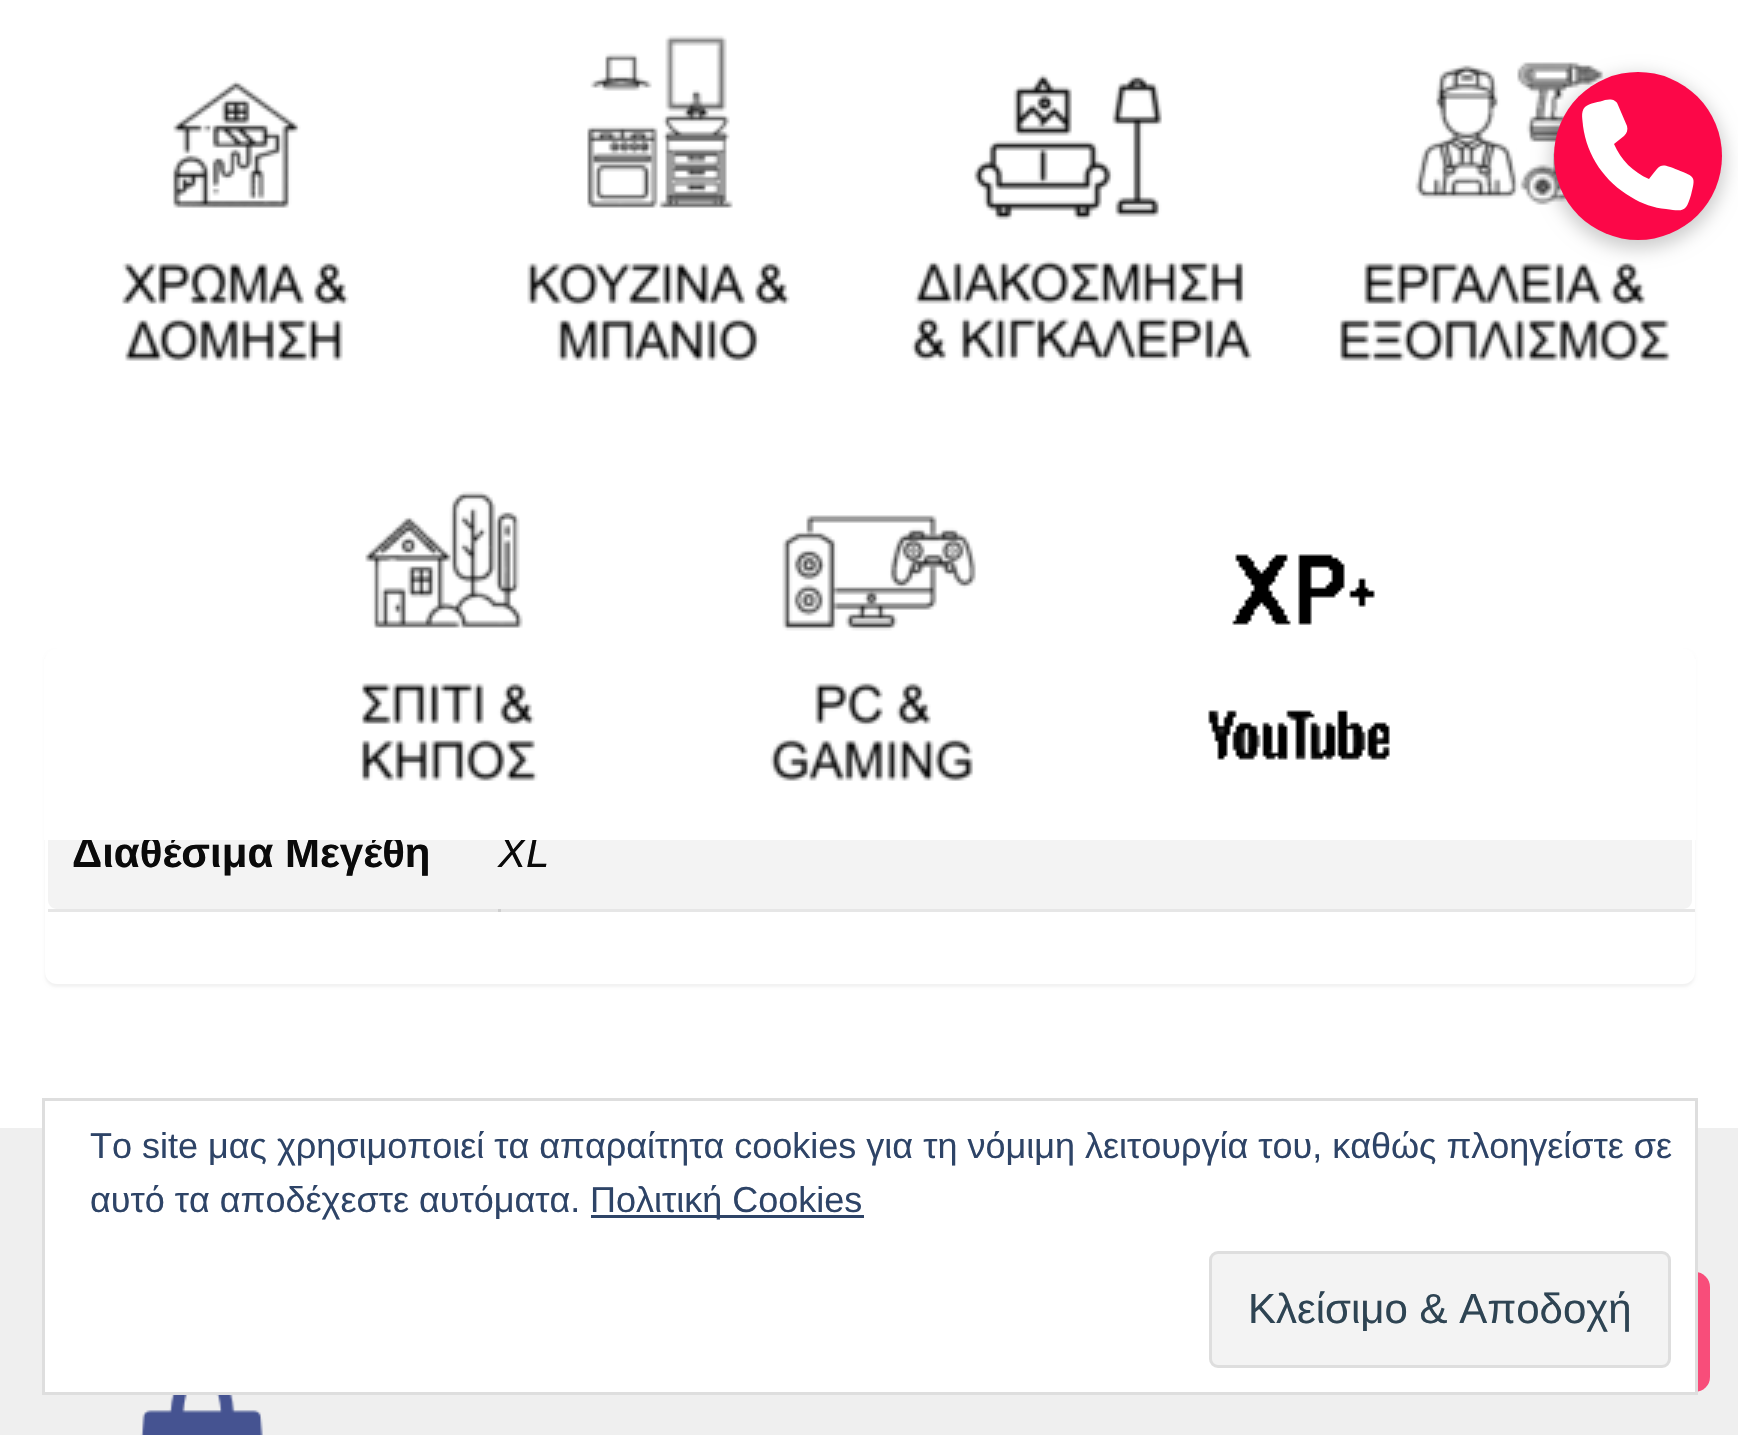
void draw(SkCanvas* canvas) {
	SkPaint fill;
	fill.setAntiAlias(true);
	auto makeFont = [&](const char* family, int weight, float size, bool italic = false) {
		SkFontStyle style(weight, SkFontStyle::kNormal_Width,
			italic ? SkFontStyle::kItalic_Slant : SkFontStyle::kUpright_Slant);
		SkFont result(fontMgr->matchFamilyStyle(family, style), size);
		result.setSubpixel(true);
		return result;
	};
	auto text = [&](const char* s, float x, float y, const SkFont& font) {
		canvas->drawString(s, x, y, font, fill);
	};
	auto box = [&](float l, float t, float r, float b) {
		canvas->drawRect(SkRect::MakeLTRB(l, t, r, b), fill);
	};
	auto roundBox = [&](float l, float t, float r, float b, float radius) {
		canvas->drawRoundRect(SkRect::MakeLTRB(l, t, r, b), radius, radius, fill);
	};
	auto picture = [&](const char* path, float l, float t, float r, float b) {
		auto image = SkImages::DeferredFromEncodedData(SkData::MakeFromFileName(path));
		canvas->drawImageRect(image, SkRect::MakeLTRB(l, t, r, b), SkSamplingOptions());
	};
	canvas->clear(0xFFFFFFFF);
	picture("image0.png", 121, 80, 349, 361);
	picture("image1.png", 527, 35, 790, 361);
	picture("image2.png", 911, 74, 1252, 361);
	picture("image3.png", 1339, 62, 1671, 361);
	fill.setColor(0x33000000);
	fill.setMaskFilter(SkMaskFilter::MakeBlur(kNormal_SkBlurStyle, 9));
	canvas->drawRoundRect(SkRect::MakeLTRB(1551, 75, 1725, 249), 87, 87, fill);
	fill.setMaskFilter(nullptr);
	fill.setColor(0xFFFC0748);
	canvas->drawCircle(1638, 156, 84, fill);
	fill.setColor(0xFFFFFFFF);
	canvas->drawPath(SkPathBuilder().moveTo(1618, 105).cubicTo(1616, 99, 1610, 99, 1605, 100).cubicTo(1600, 102, 1589, 103, 1585, 107).cubicTo(1580, 112, 1583, 121, 1583, 126).cubicTo(1587, 156, 1605, 182, 1631, 197).cubicTo(1642, 204, 1654, 208, 1666, 209).cubicTo(1685, 212, 1686, 211, 1691, 195).cubicTo(1696, 176, 1695, 177, 1678, 170).cubicTo(1659, 162, 1661, 164, 1649, 179).cubicTo(1633, 172, 1621, 160, 1614, 144).lineTo(1624, 136).cubicTo(1627, 133, 1628, 130, 1627, 126).close().detach(), fill);
	fill.setColor(0x0D000000);
	fill.setMaskFilter(SkMaskFilter::MakeBlur(kNormal_SkBlurStyle, 1.5f));
	canvas->drawRoundRect(SkRect::MakeLTRB(45, 651, 1695, 987), 12, 12, fill);
	fill.setMaskFilter(nullptr);
	fill.setColor(0xFFFFFFFF);
	roundBox(45, 648, 1695, 984, 12);
	fill.setColor(0xFFE6E6E6);
	box(48, 909, 1695, 912);
	fill.setColor(0xFFF3F3F3);
	canvas->drawPath(SkPathBuilder().moveTo(48, 795).lineTo(1692, 795).lineTo(1692, 900).cubicTo(1692, 905, 1688, 909, 1683, 909).lineTo(57, 909).cubicTo(52, 909, 48, 905, 48, 900).close().detach(), fill);
	fill.setColor(0xFFCFCFCF);
	box(498, 909, 501, 912);
	fill.setColor(0xFFEFEFEF);
	box(0, 1128, 1738, 1435);
	fill.setColor(0xFFF84D7A);
	roundBox(1590, 1272, 1710, 1392, 15);
	picture("image7.png", 140, 1395, 263, 1435);
	fill.setColor(0xFFFFFFFF);
	box(45, 1128, 1695, 1392);
	fill.setStyle(SkPaint::kStroke_Style);
	fill.setStrokeWidth(3);
	fill.setColor(0xFFDEDEDE);
	canvas->drawRect(SkRect::MakeLTRB(43.5f, 1099.5f, 1696.5f, 1393.5f), fill);
	fill.setStyle(SkPaint::kFill_Style);
	fill.setColor(0xFF2E4467);
	box(591, 1215, 864, 1218);
	fill.setColor(0xFFF3F3F3);
	canvas->drawRoundRect(SkRect::MakeLTRB(1210.5f, 1252.5f, 1669.5f, 1366.5f), 7.5f, 7.5f, fill);
	fill.setStyle(SkPaint::kStroke_Style);
	fill.setColor(0xFFDEDEDE);
	canvas->drawRoundRect(SkRect::MakeLTRB(1210.5f, 1252.5f, 1669.5f, 1366.5f), 7.5f, 7.5f, fill);
	auto font1 = makeFont("Liberation Sans", 700, 42);
	fill.setStyle(SkPaint::kFill_Style);
	fill.setColor(0xFF0A0A0A);
	text("Διαθέσιμα Μεγέθη", 72, 867, font1);
	auto font2 = makeFont("Liberation Sans", 400, 42, true);
	text("XL", 498, 867, font2);
	fill.setColor(0xFFFFFFFF);
	box(44, 659, 1696, 840);
	picture("image6.png", 1208, 554, 1390, 760);
	picture("image5.png", 770, 515, 976, 781);
	picture("image4.png", 360, 491, 538, 781);
	auto font3 = makeFont("Liberation Sans", 400, 36);
	fill.setColor(0xFF2E4467);
	text("Το site μας χρησιμοποιεί τα απαραίτητα cookies για τη νόμιμη λειτουργία του, καθώς πλοηγείστε σε", 90, 1158, font3);
	text("αυτό τα αποδέχεστε αυτόματα.", 90, 1212, font3);
	text("Πολιτική Cookies", 590, 1212, font3);
	auto font4 = makeFont("Liberation Sans", 400, 42);
	fill.setColor(0xFF2E4453);
	text("Κλείσιμο & Αποδοχή", 1248, 1323, font4);
}
